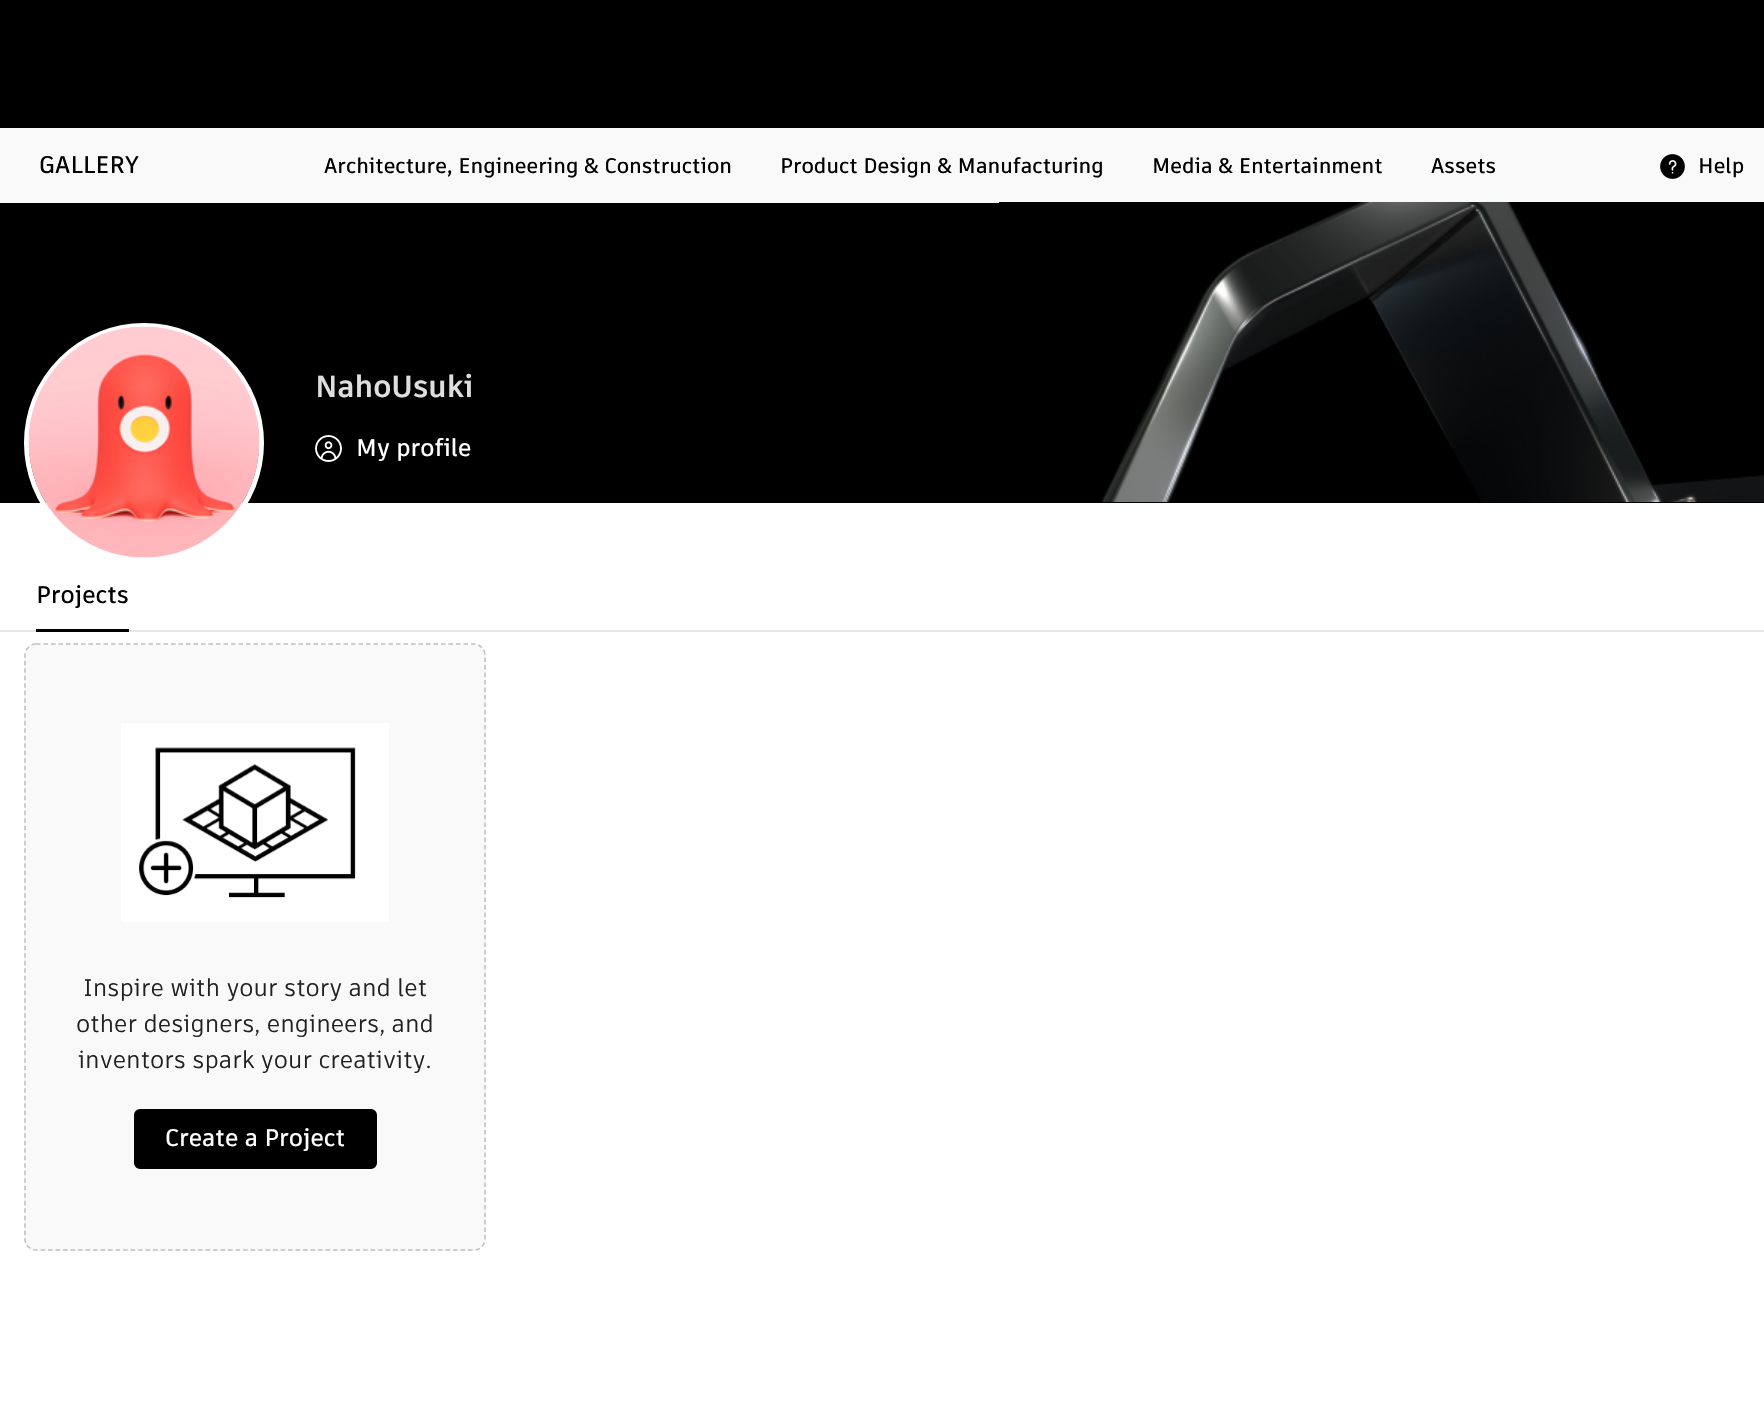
void draw(SkCanvas* canvas) {
	SkPaint fill;
	fill.setAntiAlias(true);
	auto makeFont = [&](const char* family, int weight, float size, bool italic = false) {
		SkFontStyle style(weight, SkFontStyle::kNormal_Width,
			italic ? SkFontStyle::kItalic_Slant : SkFontStyle::kUpright_Slant);
		SkFont result(fontMgr->matchFamilyStyle(family, style), size);
		result.setSubpixel(true);
		return result;
	};
	auto text = [&](const char* s, float x, float y, const SkFont& font) {
		canvas->drawString(s, x, y, font, fill);
	};
	auto box = [&](float l, float t, float r, float b) {
		canvas->drawRect(SkRect::MakeLTRB(l, t, r, b), fill);
	};
	auto roundBox = [&](float l, float t, float r, float b, float radius) {
		canvas->drawRoundRect(SkRect::MakeLTRB(l, t, r, b), radius, radius, fill);
	};
	auto picture = [&](const char* path, float l, float t, float r, float b) {
		auto image = SkImages::DeferredFromEncodedData(SkData::MakeFromFileName(path));
		canvas->drawImageRect(image, SkRect::MakeLTRB(l, t, r, b), SkSamplingOptions());
	};
	canvas->clear(0xFFFFFFFF);
	fill.setColor(0xFF000000);
	box(0, 0, 1764, 128);
	fill.setColor(0xFFF9F9F9);
	box(0, 128, 1764, 203);
	picture("image0.png", 1660, 154, 1685, 179);
	fill.setColor(0xFF000000);
	box(0, 203, 1764, 503);
	fill.setStyle(SkPaint::kStroke_Style);
	fill.setStrokeWidth(5);
	fill.setColor(0xFFFFFFFF);
	canvas->drawCircle(144, 443, 117.5f, fill);
	picture("image1.png", 28, 326, 260, 558);
	picture("image2.png", 315, 435, 342, 462);
	picture("image3.png", 999, 202, 1764, 502);
	fill.setStyle(SkPaint::kFill_Style);
	fill.setColor(0xFFE6E6E6);
	box(0, 630, 1764, 632);
	fill.setColor(0xFF000000);
	box(36, 629, 129, 632);
	fill.setColor(0xFFF9F9F9);
	roundBox(24, 644, 486, 1251, 12);
	fill.setStyle(SkPaint::kStroke_Style);
	fill.setStrokeWidth(1.5f);
	fill.setColor(0xFFBFBFBF);
	fill.setPathEffect(SkDashPathEffect::Make({{4.5f, 3}}, 0));
	canvas->drawPath(SkPathBuilder().moveTo(36, 644).lineTo(474, 644).cubicTo(480, 644, 485, 649.5f, 485, 655.5f).lineTo(485, 1239).cubicTo(485, 1245, 480, 1250, 474, 1250).lineTo(36, 1250).cubicTo(30, 1250, 25, 1245, 25, 1239).lineTo(25, 655.5f).cubicTo(25, 649.5f, 30, 644, 36, 644).close().detach(), fill);
	fill.setPathEffect(nullptr);
	picture("image4.png", 121, 723, 389, 922);
	fill.setStyle(SkPaint::kFill_Style);
	fill.setColor(0xFF000000);
	canvas->drawRoundRect(SkRect::MakeLTRB(135, 1110, 376, 1168), 5, 5, fill);
	fill.setStyle(SkPaint::kStroke_Style);
	fill.setStrokeWidth(2);
	canvas->drawRoundRect(SkRect::MakeLTRB(135, 1110, 376, 1168), 5, 5, fill);
	auto font1 = makeFont("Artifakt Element", 600, 24);
	fill.setStyle(SkPaint::kFill_Style);
	text("GALLERY", 39, 173, font1);
	auto font2 = makeFont("Artifakt Element", 600, 21);
	text("Architecture, Engineering & Construction", 324, 173, font2);
	text("Product Design & Manufacturing", 780, 173, font2);
	text("Media & Entertainment", 1152, 173, font2);
	text("Assets", 1431, 173, font2);
	text("Help", 1698, 173, font2);
	auto font3 = makeFont("Artifakt Element", 700, 30.5f);
	fill.setColor(0xFFDEDEDE);
	text("NahoUsuki", 315, 397, font3);
	fill.setColor(0xFFFFFFFF);
	text("My profile", 356, 456, font1);
	fill.setColor(0xFF000000);
	text("Projects", 36, 603, font1);
	auto font4 = makeFont("Artifakt Element", 400, 24);
	fill.setColor(0xFF212121);
	text("Inspire with your story and let", 83, 996, font4);
	text("other designers, engineers, and", 76, 1032, font4);
	text("inventors spark your creativity.", 78, 1068, font4);
	fill.setColor(0xFFFFFFFF);
	text("Create a Project", 165, 1146, font1);
}
